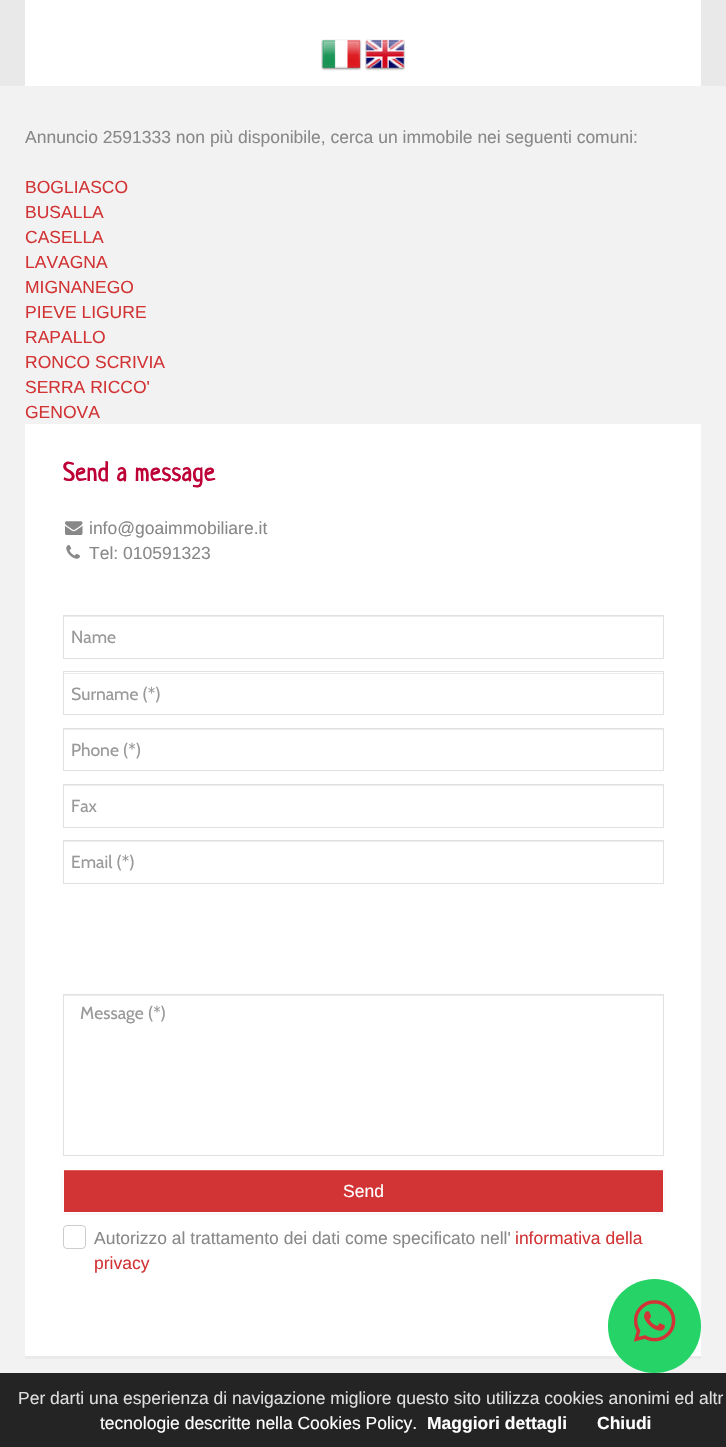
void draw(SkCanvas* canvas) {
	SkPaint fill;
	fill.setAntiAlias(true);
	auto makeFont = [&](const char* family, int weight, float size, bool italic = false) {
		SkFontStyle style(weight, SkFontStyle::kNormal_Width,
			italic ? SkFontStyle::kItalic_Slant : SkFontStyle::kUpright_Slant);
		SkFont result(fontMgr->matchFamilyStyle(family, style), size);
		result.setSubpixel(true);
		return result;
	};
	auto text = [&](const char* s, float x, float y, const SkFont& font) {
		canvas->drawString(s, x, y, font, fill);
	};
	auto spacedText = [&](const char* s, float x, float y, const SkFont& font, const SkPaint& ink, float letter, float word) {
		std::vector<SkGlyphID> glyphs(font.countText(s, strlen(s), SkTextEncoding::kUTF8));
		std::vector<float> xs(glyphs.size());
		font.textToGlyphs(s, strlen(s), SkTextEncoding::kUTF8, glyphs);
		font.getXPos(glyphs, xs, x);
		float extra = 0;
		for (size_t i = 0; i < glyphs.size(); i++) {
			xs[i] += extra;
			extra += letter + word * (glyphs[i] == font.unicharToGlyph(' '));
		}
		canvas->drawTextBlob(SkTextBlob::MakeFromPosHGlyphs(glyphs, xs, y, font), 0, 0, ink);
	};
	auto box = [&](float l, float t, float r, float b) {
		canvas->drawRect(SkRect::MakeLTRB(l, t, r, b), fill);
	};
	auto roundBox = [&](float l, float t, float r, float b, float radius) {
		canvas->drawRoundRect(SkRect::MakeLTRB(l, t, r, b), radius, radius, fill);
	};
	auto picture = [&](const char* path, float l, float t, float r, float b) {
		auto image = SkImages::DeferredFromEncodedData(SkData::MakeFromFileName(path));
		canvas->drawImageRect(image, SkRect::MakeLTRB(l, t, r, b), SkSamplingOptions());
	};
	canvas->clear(0xFFF2F2F2);
	fill.setColor(0xFF242424);
	box(0, 1373, 726, 1447);
	fill.setColor(0xFFE9E9E9);
	box(0, 0, 726, 86);
	fill.setColor(0xFFFFFFFF);
	box(25, 0, 701, 86);
	picture("image0.png", 321, 39, 362, 71);
	picture("image1.png", 365, 39, 405, 71);
	box(25, 424, 701, 1356);
	fill.setColor(0xFFEAEAEA);
	box(25, 1356, 701, 1359);
	picture("image2.png", 65, 521, 83, 535);
	picture("image3.png", 66, 545, 80, 559);
	fill.setColor(0xFFECECEC);
	box(64, 616, 663, 617);
	fill.setStyle(SkPaint::kStroke_Style);
	fill.setStrokeWidth(1);
	fill.setColor(0xFFE1E1E1);
	canvas->drawRect(SkRect::MakeLTRB(63.5f, 615.5f, 663.5f, 658.5f), fill);
	fill.setStyle(SkPaint::kFill_Style);
	fill.setColor(0xFFECECEC);
	box(64, 673, 663, 674);
	fill.setStyle(SkPaint::kStroke_Style);
	fill.setColor(0xFFE1E1E1);
	canvas->drawRect(SkRect::MakeLTRB(63.5f, 671.5f, 663.5f, 714.5f), fill);
	fill.setStyle(SkPaint::kFill_Style);
	fill.setColor(0xFFECECEC);
	box(64, 729, 663, 730);
	fill.setStyle(SkPaint::kStroke_Style);
	fill.setColor(0xFFE1E1E1);
	canvas->drawRect(SkRect::MakeLTRB(63.5f, 728.5f, 663.5f, 770.5f), fill);
	fill.setStyle(SkPaint::kFill_Style);
	fill.setColor(0xFFECECEC);
	box(64, 785, 663, 786);
	fill.setStyle(SkPaint::kStroke_Style);
	fill.setColor(0xFFE1E1E1);
	canvas->drawRect(SkRect::MakeLTRB(63.5f, 784.5f, 663.5f, 827.5f), fill);
	fill.setStyle(SkPaint::kFill_Style);
	fill.setColor(0xFFECECEC);
	box(64, 841, 663, 842);
	fill.setStyle(SkPaint::kStroke_Style);
	fill.setColor(0xFFE1E1E1);
	canvas->drawRect(SkRect::MakeLTRB(63.5f, 840.5f, 663.5f, 883.5f), fill);
	fill.setStyle(SkPaint::kFill_Style);
	fill.setColor(0xFFECECEC);
	box(64, 995, 663, 996);
	fill.setStyle(SkPaint::kStroke_Style);
	fill.setColor(0xFFE1E1E1);
	canvas->drawRect(SkRect::MakeLTRB(63.5f, 994.5f, 663.5f, 1155.5f), fill);
	fill.setStyle(SkPaint::kFill_Style);
	fill.setColor(0x0D000000);
	fill.setMaskFilter(SkMaskFilter::MakeBlur(kNormal_SkBlurStyle, 1));
	canvas->drawRect(SkRect::MakeLTRB(63, 1170, 664, 1214), fill);
	fill.setMaskFilter(nullptr);
	fill.setColor(0xFFD23435);
	box(64, 1171, 663, 1212);
	fill.setColor(0xFFDB5D5D);
	box(64, 1170, 663, 1171);
	fill.setStyle(SkPaint::kStroke_Style);
	fill.setColor(0xFFFFFFFF);
	canvas->drawRect(SkRect::MakeLTRB(63.5f, 1169.5f, 663.5f, 1212.5f), fill);
	fill.setColor(0xFFCCCCCC);
	canvas->drawRoundRect(SkRect::MakeLTRB(63.5f, 1225.5f, 85.5f, 1248.5f), 3.5f, 3.5f, fill);
	fill.setStyle(SkPaint::kFill_Style);
	fill.setColor(0xFF25D366);
	roundBox(608, 1279, 701, 1373, 46.5f);
	picture("image4.png", 633, 1300, 676, 1342);
	auto font1 = makeFont("Liberation Sans", 400, 17.5f);
	fill.setColor(0xFF888888);
	text("Annuncio 2591333 non più disponibile, cerca un immobile nei seguenti comuni:", 25, 143, font1);
	fill.setColor(0xFFD23435);
	text("BOGLIASCO", 25, 193, font1);
	text("BUSALLA", 25, 218, font1);
	text("CASELLA", 25, 243, font1);
	text("LAVAGNA", 25, 268, font1);
	text("MIGNANEGO", 25, 293, font1);
	text("PIEVE LIGURE", 25, 318, font1);
	text("RAPALLO", 25, 343, font1);
	text("RONCO SCRIVIA", 25, 368, font1);
	text("SERRA RICCO'", 25, 393, font1);
	text("GENOVA", 25, 418, font1);
	auto font2 = makeFont("Neucha", 700, 25);
	fill.setColor(0xFFBD0036);
	spacedText("Send a message", 63, 481, font2, fill, 0.6f, 0);
	fill.setColor(0xFF888888);
	text("info@goaimmobiliare.it", 89, 534, font1);
	text("Tel: 010591323", 89, 559, font1);
	auto font3 = makeFont("Cabin", 400, 17.5f);
	fill.setColor(0xFF999999);
	text("Name", 71, 643, font3);
	text("Surname (*)", 71, 700, font3);
	text("Phone (*)", 71, 756, font3);
	text("Fax", 71, 812, font3);
	text("Email (*)", 71, 868, font3);
	text("Message (*)", 80, 1019, font3);
	fill.setColor(0xFFFFFFFF);
	text("Send", 343, 1197, font1);
	fill.setColor(0xFF888888);
	text("Autorizzo al trattamento dei dati come specificato nell'", 94, 1244, font1);
	fill.setColor(0xFFD23435);
	text("informativa della", 515, 1244, font1);
	text("privacy", 94, 1269, font1);
	fill.setColor(0xFFDEDEDE);
	text("Per darti una esperienza di navigazione migliore questo sito utilizza cookies anonimi ed altr", 18, 1404, font1);
	fill.setColor(0xFFFFFFFF);
	text("tecnologie descritte nella Cookies Policy.", 100, 1429, font1);
	auto font4 = makeFont("Liberation Sans", 700, 17.5f);
	text("Maggiori dettagli", 427, 1429, font4);
	text("Chiudi", 597, 1429, font4);
}
